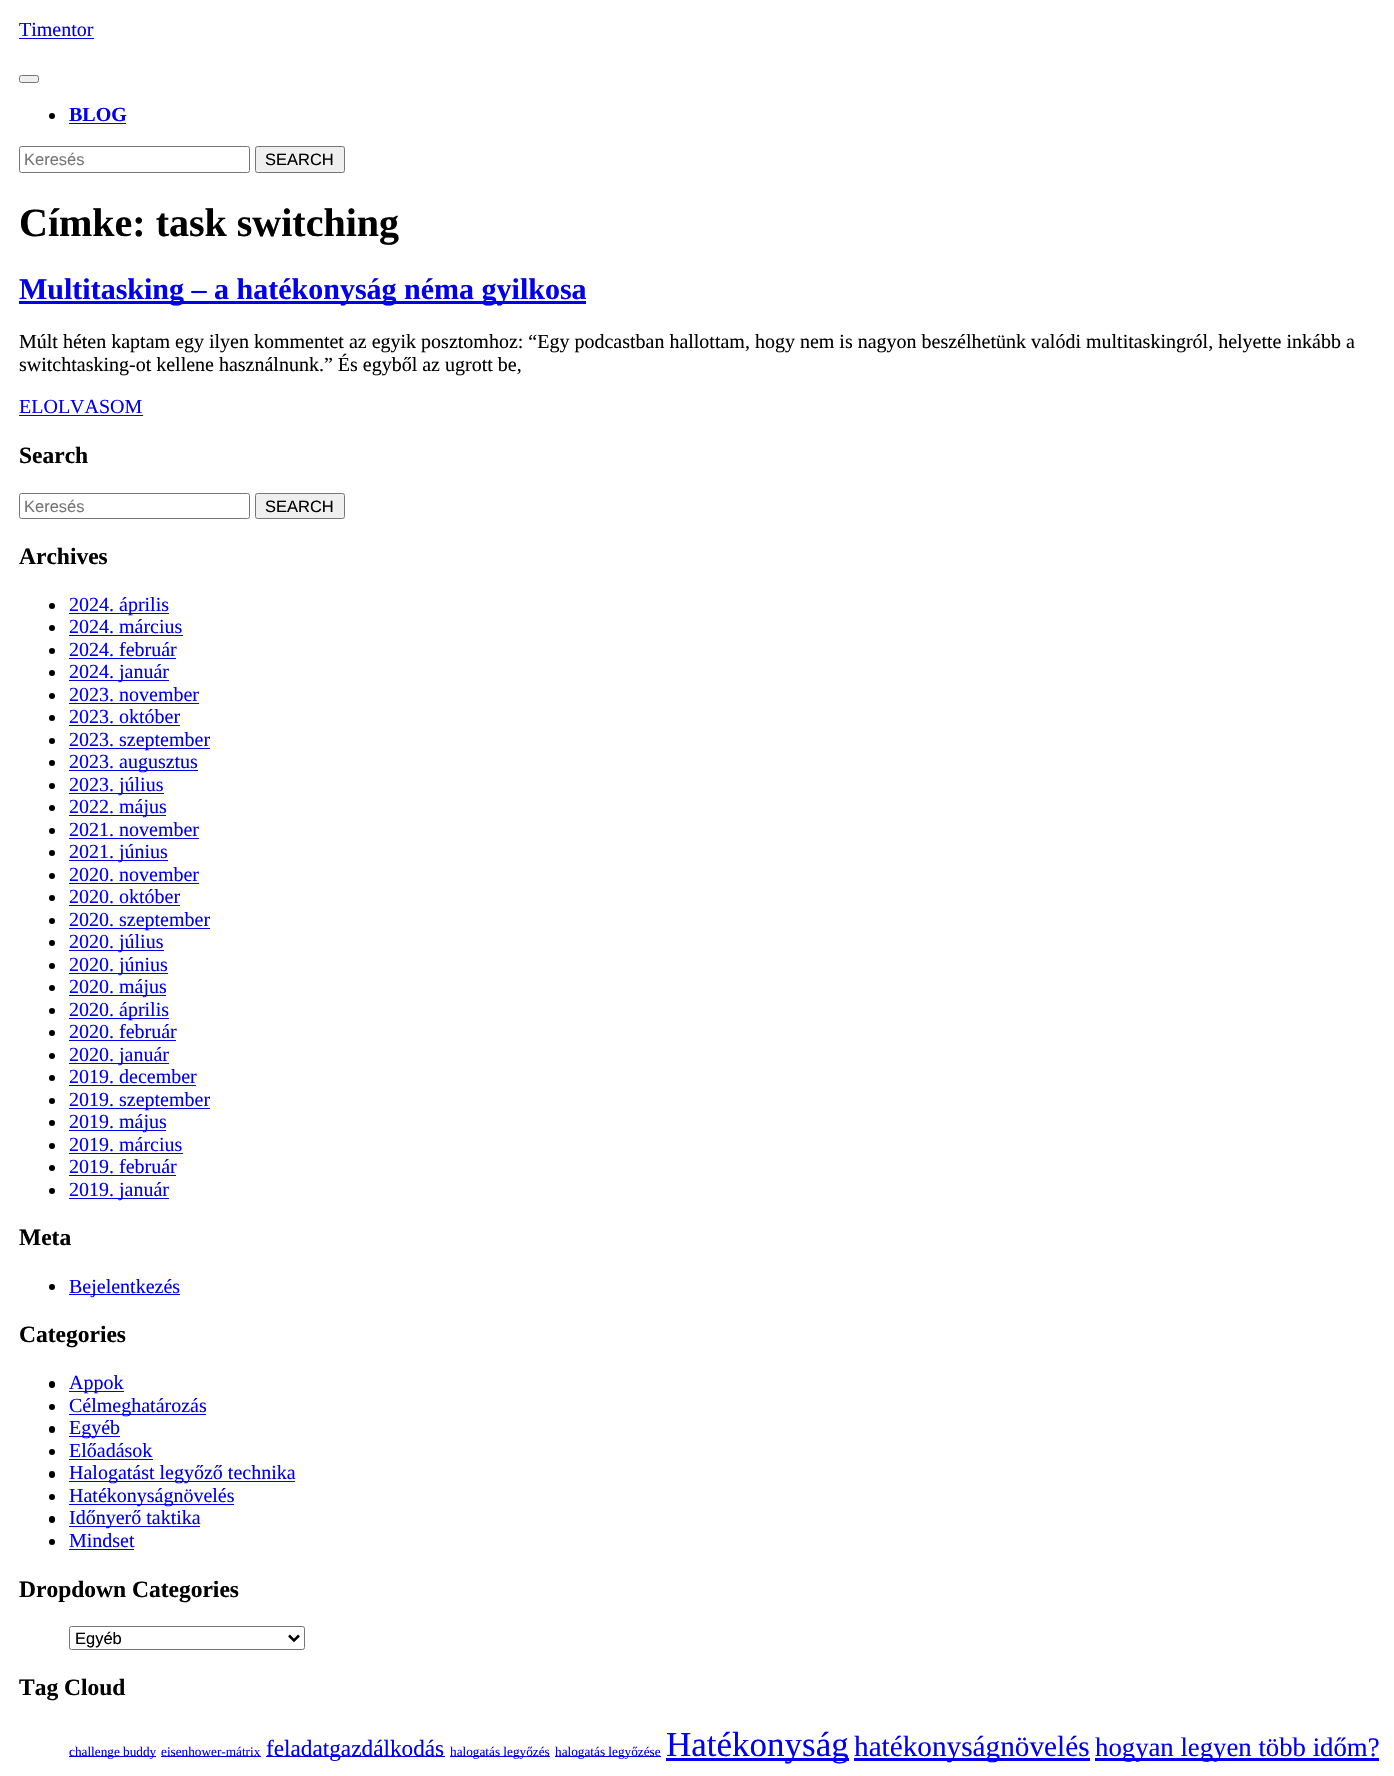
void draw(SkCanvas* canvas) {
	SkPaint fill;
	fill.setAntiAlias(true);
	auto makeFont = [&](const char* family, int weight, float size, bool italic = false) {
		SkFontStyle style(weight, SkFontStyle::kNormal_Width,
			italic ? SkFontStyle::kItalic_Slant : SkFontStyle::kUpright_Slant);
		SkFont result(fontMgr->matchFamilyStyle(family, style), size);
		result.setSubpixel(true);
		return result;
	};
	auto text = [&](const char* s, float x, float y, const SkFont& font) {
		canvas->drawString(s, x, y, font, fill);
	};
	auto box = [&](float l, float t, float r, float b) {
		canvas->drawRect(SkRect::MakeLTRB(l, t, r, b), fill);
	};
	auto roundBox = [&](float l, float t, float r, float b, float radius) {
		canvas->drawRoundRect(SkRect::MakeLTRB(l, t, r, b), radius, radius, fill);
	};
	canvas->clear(0xFFFFFFFF);
	fill.setColor(0xFF0000EE);
	box(19, 38, 94, 39);
	fill.setColor(0xFFEFEFEF);
	canvas->drawRoundRect(SkRect::MakeLTRB(19.5f, 75.5f, 38.5f, 82.5f), 2, 2, fill);
	fill.setStyle(SkPaint::kStroke_Style);
	fill.setStrokeWidth(1);
	fill.setColor(0xFF767676);
	canvas->drawRoundRect(SkRect::MakeLTRB(19.5f, 75.5f, 38.5f, 82.5f), 2, 2, fill);
	fill.setStyle(SkPaint::kFill_Style);
	fill.setColor(0xFF000000);
	canvas->drawCircle(52, 116, 3, fill);
	fill.setColor(0xFF0000EE);
	box(69, 123, 126, 124);
	fill.setStyle(SkPaint::kStroke_Style);
	fill.setColor(0xFF767676);
	canvas->drawRoundRect(SkRect::MakeLTRB(19.5f, 146.5f, 249.5f, 172.5f), 2, 2, fill);
	fill.setStyle(SkPaint::kFill_Style);
	fill.setColor(0xFFEFEFEF);
	canvas->drawRoundRect(SkRect::MakeLTRB(255.5f, 146.5f, 344.5f, 172.5f), 2, 2, fill);
	fill.setStyle(SkPaint::kStroke_Style);
	fill.setColor(0xFF767676);
	canvas->drawRoundRect(SkRect::MakeLTRB(255.5f, 146.5f, 344.5f, 172.5f), 2, 2, fill);
	fill.setStyle(SkPaint::kFill_Style);
	fill.setColor(0xFF0000EE);
	box(19, 301, 586, 304);
	box(19, 415, 143, 416);
	fill.setStyle(SkPaint::kStroke_Style);
	fill.setColor(0xFF767676);
	canvas->drawRoundRect(SkRect::MakeLTRB(19.5f, 493.5f, 249.5f, 518.5f), 2, 2, fill);
	fill.setStyle(SkPaint::kFill_Style);
	fill.setColor(0xFFEFEFEF);
	canvas->drawRoundRect(SkRect::MakeLTRB(255.5f, 493.5f, 344.5f, 518.5f), 2, 2, fill);
	fill.setStyle(SkPaint::kStroke_Style);
	fill.setColor(0xFF767676);
	canvas->drawRoundRect(SkRect::MakeLTRB(255.5f, 493.5f, 344.5f, 518.5f), 2, 2, fill);
	fill.setStyle(SkPaint::kFill_Style);
	fill.setColor(0xFF000000);
	canvas->drawCircle(52, 606, 3, fill);
	fill.setColor(0xFF0000EE);
	box(69, 613, 169, 614);
	fill.setColor(0xFF000000);
	canvas->drawCircle(52, 628, 3, fill);
	fill.setColor(0xFF0000EE);
	box(69, 635, 183, 636);
	fill.setColor(0xFF000000);
	canvas->drawCircle(52, 651, 3, fill);
	fill.setColor(0xFF0000EE);
	box(69, 658, 176, 659);
	fill.setColor(0xFF000000);
	canvas->drawCircle(52, 673, 3, fill);
	fill.setColor(0xFF0000EE);
	box(69, 680, 169, 681);
	fill.setColor(0xFF000000);
	canvas->drawCircle(52, 696, 3, fill);
	fill.setColor(0xFF0000EE);
	box(69, 703, 199, 704);
	fill.setColor(0xFF000000);
	canvas->drawCircle(52, 718, 3, fill);
	fill.setColor(0xFF0000EE);
	box(69, 725, 180, 726);
	fill.setColor(0xFF000000);
	canvas->drawCircle(52, 741, 3, fill);
	fill.setColor(0xFF0000EE);
	box(69, 748, 210, 749);
	fill.setColor(0xFF000000);
	canvas->drawCircle(52, 763, 3, fill);
	fill.setColor(0xFF0000EE);
	box(69, 770, 198, 771);
	fill.setColor(0xFF000000);
	canvas->drawCircle(52, 786, 3, fill);
	fill.setColor(0xFF0000EE);
	box(69, 793, 164, 794);
	fill.setColor(0xFF000000);
	canvas->drawCircle(52, 808, 3, fill);
	fill.setColor(0xFF0000EE);
	box(69, 815, 166, 816);
	fill.setColor(0xFF000000);
	canvas->drawCircle(52, 831, 3, fill);
	fill.setColor(0xFF0000EE);
	box(69, 838, 199, 839);
	fill.setColor(0xFF000000);
	canvas->drawCircle(52, 853, 3, fill);
	fill.setColor(0xFF0000EE);
	box(69, 860, 168, 861);
	fill.setColor(0xFF000000);
	canvas->drawCircle(52, 876, 3, fill);
	fill.setColor(0xFF0000EE);
	box(69, 883, 199, 884);
	fill.setColor(0xFF000000);
	canvas->drawCircle(52, 898, 3, fill);
	fill.setColor(0xFF0000EE);
	box(69, 905, 180, 906);
	fill.setColor(0xFF000000);
	canvas->drawCircle(52, 921, 3, fill);
	fill.setColor(0xFF0000EE);
	box(69, 928, 210, 929);
	fill.setColor(0xFF000000);
	canvas->drawCircle(52, 943, 3, fill);
	fill.setColor(0xFF0000EE);
	box(69, 950, 164, 951);
	fill.setColor(0xFF000000);
	canvas->drawCircle(52, 966, 3, fill);
	fill.setColor(0xFF0000EE);
	box(69, 973, 168, 974);
	fill.setColor(0xFF000000);
	canvas->drawCircle(52, 988, 3, fill);
	fill.setColor(0xFF0000EE);
	box(69, 995, 166, 996);
	fill.setColor(0xFF000000);
	canvas->drawCircle(52, 1011, 3, fill);
	fill.setColor(0xFF0000EE);
	box(69, 1018, 169, 1019);
	fill.setColor(0xFF000000);
	canvas->drawCircle(52, 1033, 3, fill);
	fill.setColor(0xFF0000EE);
	box(69, 1040, 176, 1041);
	fill.setColor(0xFF000000);
	canvas->drawCircle(52, 1056, 3, fill);
	fill.setColor(0xFF0000EE);
	box(69, 1063, 169, 1064);
	fill.setColor(0xFF000000);
	canvas->drawCircle(52, 1078, 3, fill);
	fill.setColor(0xFF0000EE);
	box(69, 1085, 196, 1086);
	fill.setColor(0xFF000000);
	canvas->drawCircle(52, 1101, 3, fill);
	fill.setColor(0xFF0000EE);
	box(69, 1108, 210, 1109);
	fill.setColor(0xFF000000);
	canvas->drawCircle(52, 1123, 3, fill);
	fill.setColor(0xFF0000EE);
	box(69, 1130, 166, 1131);
	fill.setColor(0xFF000000);
	canvas->drawCircle(52, 1146, 3, fill);
	fill.setColor(0xFF0000EE);
	box(69, 1153, 183, 1154);
	fill.setColor(0xFF000000);
	canvas->drawCircle(52, 1168, 3, fill);
	fill.setColor(0xFF0000EE);
	box(69, 1175, 176, 1176);
	fill.setColor(0xFF000000);
	canvas->drawCircle(52, 1191, 3, fill);
	fill.setColor(0xFF0000EE);
	box(69, 1198, 169, 1199);
	fill.setColor(0xFF000000);
	canvas->drawCircle(52, 1287, 3, fill);
	fill.setColor(0xFF0000EE);
	box(69, 1294, 180, 1295);
	fill.setColor(0xFF000000);
	roundBox(49, 1381, 55, 1388, 3);
	fill.setColor(0xFF0000EE);
	box(69, 1391, 124, 1392);
	fill.setColor(0xFF000000);
	canvas->drawCircle(52, 1407, 3, fill);
	fill.setColor(0xFF0000EE);
	box(69, 1414, 206, 1415);
	fill.setColor(0xFF000000);
	roundBox(49, 1426, 55, 1433, 3);
	fill.setColor(0xFF0000EE);
	box(69, 1436, 120, 1437);
	fill.setColor(0xFF000000);
	canvas->drawCircle(52, 1452, 3, fill);
	fill.setColor(0xFF0000EE);
	box(69, 1459, 153, 1460);
	fill.setColor(0xFF000000);
	roundBox(49, 1471, 55, 1478, 3);
	fill.setColor(0xFF0000EE);
	box(69, 1481, 295, 1482);
	fill.setColor(0xFF000000);
	canvas->drawCircle(52, 1497, 3, fill);
	fill.setColor(0xFF0000EE);
	box(69, 1504, 234, 1505);
	fill.setColor(0xFF000000);
	roundBox(49, 1516, 55, 1523, 3);
	fill.setColor(0xFF0000EE);
	box(69, 1526, 200, 1527);
	fill.setColor(0xFF000000);
	canvas->drawCircle(52, 1542, 3, fill);
	fill.setColor(0xFF0000EE);
	box(69, 1549, 134, 1550);
	fill.setStyle(SkPaint::kStroke_Style);
	fill.setColor(0xFF767676);
	canvas->drawRoundRect(SkRect::MakeLTRB(69.5f, 1626.5f, 304.5f, 1649.5f), 2, 2, fill);
	fill.setStrokeWidth(2.5f);
	fill.setColor(0xFF000000);
	canvas->drawPath(SkPathBuilder().moveTo(289, 1635.5f).lineTo(294, 1640.5f).lineTo(299, 1635.5f).detach(), fill);
	fill.setStyle(SkPaint::kFill_Style);
	fill.setColor(0xFF0000EE);
	box(69, 1756, 156, 1757);
	box(161, 1756, 261, 1757);
	box(266, 1756, 445, 1757);
	box(450, 1756, 550, 1757);
	box(555, 1756, 661, 1757);
	box(666, 1758, 849, 1761);
	box(854, 1758, 1090, 1761);
	box(1095, 1758, 1379, 1761);
	auto font1 = makeFont("Liberation Serif", 400, 20);
	text("Timentor", 19, 36, font1);
	auto font2 = makeFont("Liberation Serif", 700, 20);
	text("BLOG", 69, 121, font2);
	auto font3 = makeFont("Liberation Sans", 400, 16.5f);
	fill.setColor(0xFF757575);
	text("Keresés", 24, 165, font3);
	fill.setColor(0xFF000000);
	text("SEARCH", 265, 165, font3);
	auto font4 = makeFont("Liberation Serif", 700, 40);
	text("Címke: task switching", 19, 236, font4);
	auto font5 = makeFont("Liberation Serif", 700, 30);
	fill.setColor(0xFF0000EE);
	text("Multitasking – a hatékonyság néma gyilkosa", 19, 299, font5);
	fill.setColor(0xFF000000);
	text("Múlt héten kaptam egy ilyen kommentet az egyik posztomhoz: “Egy podcastban hallottam, hogy nem is nagyon beszélhetünk valódi multitaskingról, helyette inkább a", 19, 348, font1);
	text("switchtasking-ot kellene használnunk.” És egyből az ugrott be,", 19, 371, font1);
	fill.setColor(0xFF0000EE);
	text("ELOLVASOM", 19, 413, font1);
	auto font6 = makeFont("Liberation Serif", 700, 23.5f);
	fill.setColor(0xFF000000);
	text("Search", 19, 463, font6);
	fill.setColor(0xFF757575);
	text("Keresés", 24, 512, font3);
	fill.setColor(0xFF000000);
	text("SEARCH", 265, 512, font3);
	text("Archives", 19, 564, font6);
	fill.setColor(0xFF0000EE);
	text("2024. április", 69, 611, font1);
	text("2024. március", 69, 633, font1);
	text("2024. február", 69, 656, font1);
	text("2024. január", 69, 678, font1);
	text("2023. november", 69, 701, font1);
	text("2023. október", 69, 723, font1);
	text("2023. szeptember", 69, 746, font1);
	text("2023. augusztus", 69, 768, font1);
	text("2023. július", 69, 791, font1);
	text("2022. május", 69, 813, font1);
	text("2021. november", 69, 836, font1);
	text("2021. június", 69, 858, font1);
	text("2020. november", 69, 881, font1);
	text("2020. október", 69, 903, font1);
	text("2020. szeptember", 69, 926, font1);
	text("2020. július", 69, 948, font1);
	text("2020. június", 69, 971, font1);
	text("2020. május", 69, 993, font1);
	text("2020. április", 69, 1016, font1);
	text("2020. február", 69, 1038, font1);
	text("2020. január", 69, 1061, font1);
	text("2019. december", 69, 1083, font1);
	text("2019. szeptember", 69, 1106, font1);
	text("2019. május", 69, 1128, font1);
	text("2019. március", 69, 1151, font1);
	text("2019. február", 69, 1173, font1);
	text("2019. január", 69, 1196, font1);
	fill.setColor(0xFF000000);
	text("Meta", 19, 1245, font6);
	fill.setColor(0xFF0000EE);
	text("Bejelentkezés", 69, 1293, font1);
	fill.setColor(0xFF000000);
	text("Categories", 19, 1342, font6);
	fill.setColor(0xFF0000EE);
	text("Appok", 69, 1389, font1);
	text("Célmeghatározás", 69, 1412, font1);
	text("Egyéb", 69, 1434, font1);
	text("Előadások", 69, 1457, font1);
	text("Halogatást legyőző technika", 69, 1479, font1);
	text("Hatékonyságnövelés", 69, 1502, font1);
	text("Időnyerő taktika", 69, 1524, font1);
	text("Mindset", 69, 1547, font1);
	fill.setColor(0xFF000000);
	text("Dropdown Categories", 19, 1597, font6);
	text("Egyéb", 75, 1644, font3);
	text("Tag Cloud", 19, 1695, font6);
	auto font7 = makeFont("Liberation Serif", 400, 13.25f);
	fill.setColor(0xFF0000EE);
	text("challenge buddy", 69, 1756, font7);
	text("eisenhower-mátrix", 161, 1756, font7);
	auto font8 = makeFont("Liberation Serif", 400, 23.25f);
	text("feladatgazdálkodás", 266, 1756, font8);
	text("halogatás legyőzés", 450, 1756, font7);
	text("halogatás legyőzése", 555, 1756, font7);
	auto font9 = makeFont("Liberation Serif", 400, 35);
	text("Hatékonyság", 666, 1756, font9);
	auto font10 = makeFont("Liberation Serif", 400, 29.25f);
	text("hatékonyságnövelés", 854, 1756, font10);
	auto font11 = makeFont("Liberation Serif", 400, 26.75f);
	text("hogyan legyen több időm?", 1095, 1756, font11);
}
